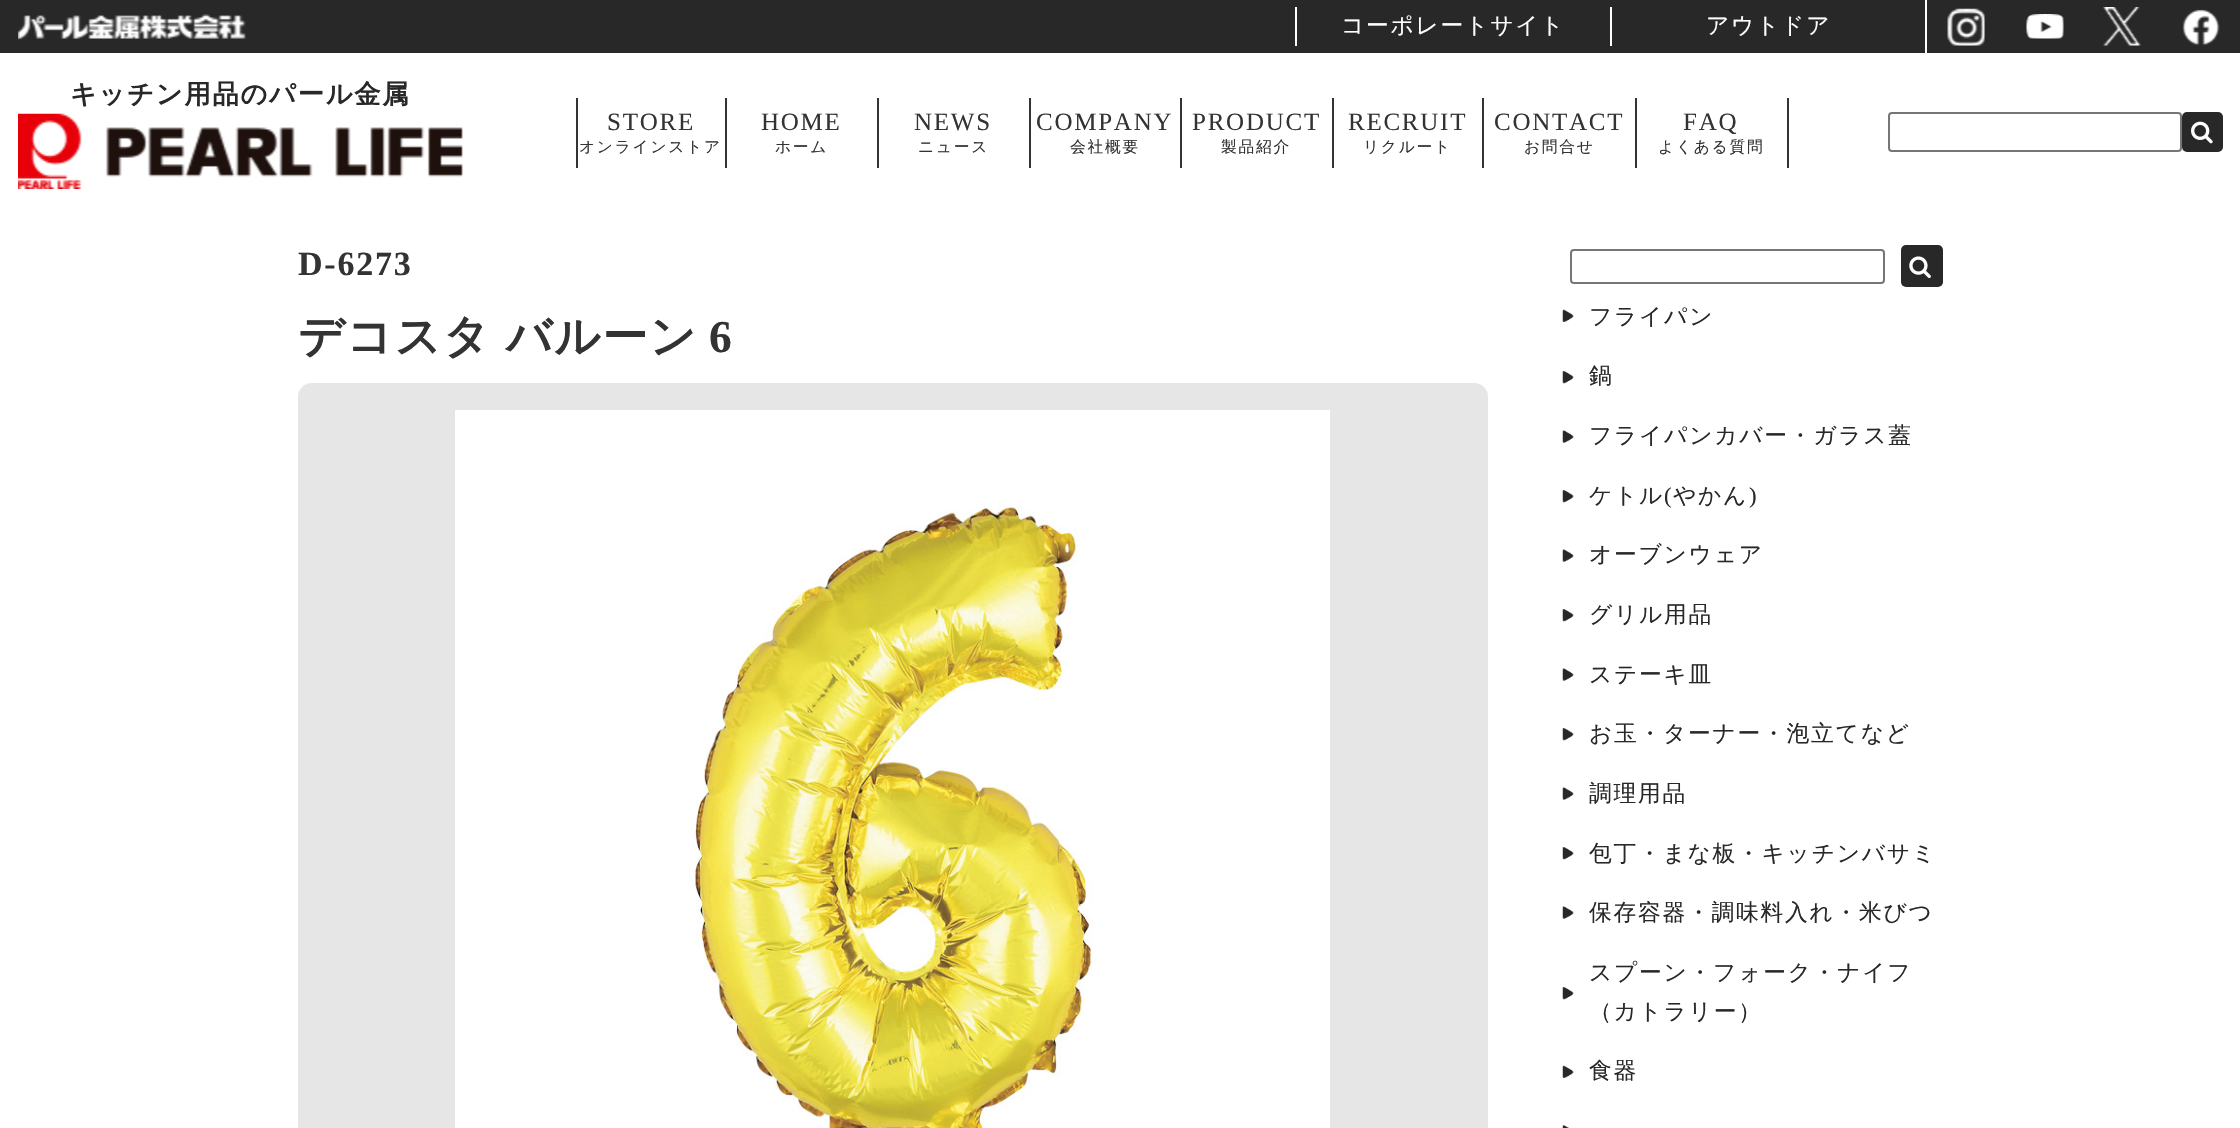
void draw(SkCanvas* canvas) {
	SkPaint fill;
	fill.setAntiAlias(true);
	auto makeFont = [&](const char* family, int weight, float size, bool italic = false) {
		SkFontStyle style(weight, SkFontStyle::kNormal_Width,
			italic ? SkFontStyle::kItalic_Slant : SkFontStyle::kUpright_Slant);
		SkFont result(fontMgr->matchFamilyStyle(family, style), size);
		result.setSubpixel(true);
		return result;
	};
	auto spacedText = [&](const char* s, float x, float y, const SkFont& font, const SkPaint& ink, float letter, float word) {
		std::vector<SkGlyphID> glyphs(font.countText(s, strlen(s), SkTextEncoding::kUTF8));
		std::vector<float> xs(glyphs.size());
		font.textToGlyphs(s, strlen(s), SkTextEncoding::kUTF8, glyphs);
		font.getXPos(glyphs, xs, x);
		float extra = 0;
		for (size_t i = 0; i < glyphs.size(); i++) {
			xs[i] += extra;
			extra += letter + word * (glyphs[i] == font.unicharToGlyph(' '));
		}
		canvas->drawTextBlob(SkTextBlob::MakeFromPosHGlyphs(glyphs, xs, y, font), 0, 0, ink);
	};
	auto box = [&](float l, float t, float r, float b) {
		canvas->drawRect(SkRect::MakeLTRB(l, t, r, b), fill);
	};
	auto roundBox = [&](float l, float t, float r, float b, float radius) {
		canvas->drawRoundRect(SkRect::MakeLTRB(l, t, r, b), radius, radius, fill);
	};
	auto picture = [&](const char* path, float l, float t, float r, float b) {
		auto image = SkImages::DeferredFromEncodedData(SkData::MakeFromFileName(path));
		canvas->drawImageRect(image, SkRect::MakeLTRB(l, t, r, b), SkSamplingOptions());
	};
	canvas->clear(0xFFFFFFFF);
	fill.setColor(0xFF282828);
	box(0, 0, 2240, 53);
	picture("image0.png", 18, 14, 246, 40);
	fill.setColor(0xFFFFFFFF);
	box(1295, 7, 1297, 46);
	box(1610, 7, 1612, 46);
	box(1925, 0, 1927, 53);
	picture("image1.png", 1947, 8, 1985, 46);
	picture("image2.png", 2026, 14, 2064, 39);
	picture("image3.png", 2103, 7, 2141, 46);
	picture("image4.png", 2182, 9, 2220, 46);
	picture("image5.png", 18, 113, 463, 189);
	fill.setColor(0xFF333333);
	box(725, 98, 727, 168);
	box(576, 98, 578, 168);
	box(877, 98, 879, 168);
	box(1029, 98, 1031, 168);
	box(1180, 98, 1182, 168);
	box(1332, 98, 1334, 168);
	box(1482, 98, 1484, 168);
	box(1635, 98, 1637, 168);
	box(1787, 98, 1789, 168);
	fill.setStyle(SkPaint::kStroke_Style);
	fill.setStrokeWidth(2);
	fill.setColor(0xFF767676);
	canvas->drawRoundRect(SkRect::MakeLTRB(1889, 113, 2181, 151), 3, 3, fill);
	fill.setStyle(SkPaint::kFill_Style);
	fill.setColor(0xFF282828);
	roundBox(2182, 112, 2223, 152, 5);
	picture("image6.png", 2191, 121, 2213, 144);
	fill.setColor(0xFFE6E6E6);
	roundBox(298, 383, 1488, 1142, 14);
	fill.setColor(0xFFFFFFFF);
	box(455, 410, 1330, 1128);
	picture("image7.png", 689, 503, 1093, 1128);
	fill.setStyle(SkPaint::kStroke_Style);
	fill.setColor(0xFF767676);
	canvas->drawRoundRect(SkRect::MakeLTRB(1571, 250, 1884, 283), 3, 3, fill);
	fill.setStyle(SkPaint::kFill_Style);
	fill.setColor(0xFF282828);
	roundBox(1901, 245, 1943, 287, 5);
	picture("image8.png", 1909, 256, 1931, 279);
	picture("image9.png", 1562, 309, 1574, 322);
	picture("image10.png", 1562, 371, 1574, 384);
	picture("image11.png", 1562, 430, 1574, 443);
	picture("image10.png", 1562, 490, 1574, 503);
	picture("image11.png", 1562, 549, 1574, 562);
	picture("image10.png", 1562, 609, 1574, 622);
	picture("image11.png", 1562, 668, 1574, 681);
	picture("image10.png", 1562, 728, 1574, 741);
	picture("image11.png", 1562, 787, 1574, 800);
	picture("image10.png", 1562, 847, 1574, 860);
	picture("image11.png", 1562, 906, 1574, 919);
	picture("image10.png", 1562, 987, 1574, 1000);
	picture("image9.png", 1562, 1065, 1574, 1078);
	picture("image12.png", 1562, 1125, 1569, 1128);
	auto font1 = makeFont("WenQuanYi Zen Hei", 500, 22.75f);
	fill.setColor(0xFFFFFFFF);
	spacedText("コーポレートサイト", 1341, 33, font1, fill, 1.75f, 0);
	spacedText("アウトドア", 1706, 33, font1, fill, 1.75f, 0);
	auto font2 = makeFont("WenQuanYi Zen Hei", 700, 26.25f);
	fill.setColor(0xFF282828);
	spacedText("キッチン用品のパール金属", 70, 103, font2, fill, 1.75f, 0);
	auto font3 = makeFont("Liberation Serif", 400, 25);
	fill.setColor(0xFF333333);
	spacedText("STORE", 607, 130, font3, fill, 1.75f, 0);
	auto font4 = makeFont("WenQuanYi Zen Hei", 500, 15.75f);
	spacedText("オンラインストア", 579, 152, font4, fill, 1.75f, 0);
	spacedText("HOME", 761, 130, font3, fill, 1.75f, 0);
	spacedText("ホーム", 775, 152, font4, fill, 1.75f, 0);
	spacedText("NEWS", 914, 130, font3, fill, 1.75f, 0);
	spacedText("ニュース", 918, 152, font4, fill, 1.75f, 0);
	spacedText("COMPANY", 1036, 130, font3, fill, 1.75f, 0);
	spacedText("会社概要", 1070, 152, font4, fill, 1.75f, 0);
	spacedText("PRODUCT", 1192, 130, font3, fill, 1.75f, 0);
	spacedText("製品紹介", 1221, 152, font4, fill, 1.75f, 0);
	spacedText("RECRUIT", 1348, 130, font3, fill, 1.75f, 0);
	spacedText("リクルート", 1363, 152, font4, fill, 1.75f, 0);
	spacedText("CONTACT", 1494, 130, font3, fill, 1.75f, 0);
	spacedText("お問合せ", 1524, 152, font4, fill, 1.75f, 0);
	spacedText("FAQ", 1683, 130, font3, fill, 1.75f, 0);
	spacedText("よくある質問", 1658, 152, font4, fill, 1.75f, 0);
	auto font5 = makeFont("Liberation Serif", 700, 34);
	spacedText("D-6273", 298, 275, font5, fill, 1.75f, 0);
	auto font6 = makeFont("WenQuanYi Zen Hei", 700, 45.5f);
	spacedText("デコスタ バルーン", 298, 352, font6, fill, 1.75f, -1);
	auto font7 = makeFont("Liberation Serif", 700, 45.5f);
	spacedText("6", 709, 352, font7, fill, 1.75f, 0);
	fill.setColor(0xFF282828);
	spacedText("フライパン", 1589, 324, font1, fill, 1.75f, 0);
	spacedText("鍋", 1589, 383, font1, fill, 1.75f, 0);
	spacedText("フライパンカバー・ガラス蓋", 1589, 443, font1, fill, 1.75f, 0);
	spacedText("ケトル", 1589, 503, font1, fill, 1.75f, 0);
	auto font8 = makeFont("Liberation Serif", 400, 22.75f);
	spacedText("(", 1664, 503, font8, fill, 1.75f, 0);
	spacedText("やかん", 1673, 503, font1, fill, 1.75f, 0);
	spacedText(")", 1749, 503, font8, fill, 1.75f, 0);
	spacedText("オーブンウェア", 1589, 562, font1, fill, 1.75f, 0);
	spacedText("グリル用品", 1589, 622, font1, fill, 1.75f, 0);
	spacedText("ステーキ皿", 1589, 682, font1, fill, 1.75f, 0);
	spacedText("お玉・ターナー・泡立てなど", 1589, 741, font1, fill, 1.75f, 0);
	spacedText("調理用品", 1589, 801, font1, fill, 1.75f, 0);
	spacedText("包丁・まな板・キッチンバサミ", 1589, 861, font1, fill, 1.75f, 0);
	spacedText("保存容器・調味料入れ・米びつ", 1589, 920, font1, fill, 1.75f, 0);
	spacedText("スプーン・フォーク・ナイフ", 1589, 980, font1, fill, 1.75f, 0);
	spacedText("（カトラリー）", 1589, 1019, font1, fill, 1.75f, 0);
	spacedText("食器", 1589, 1078, font1, fill, 1.75f, 0);
}
